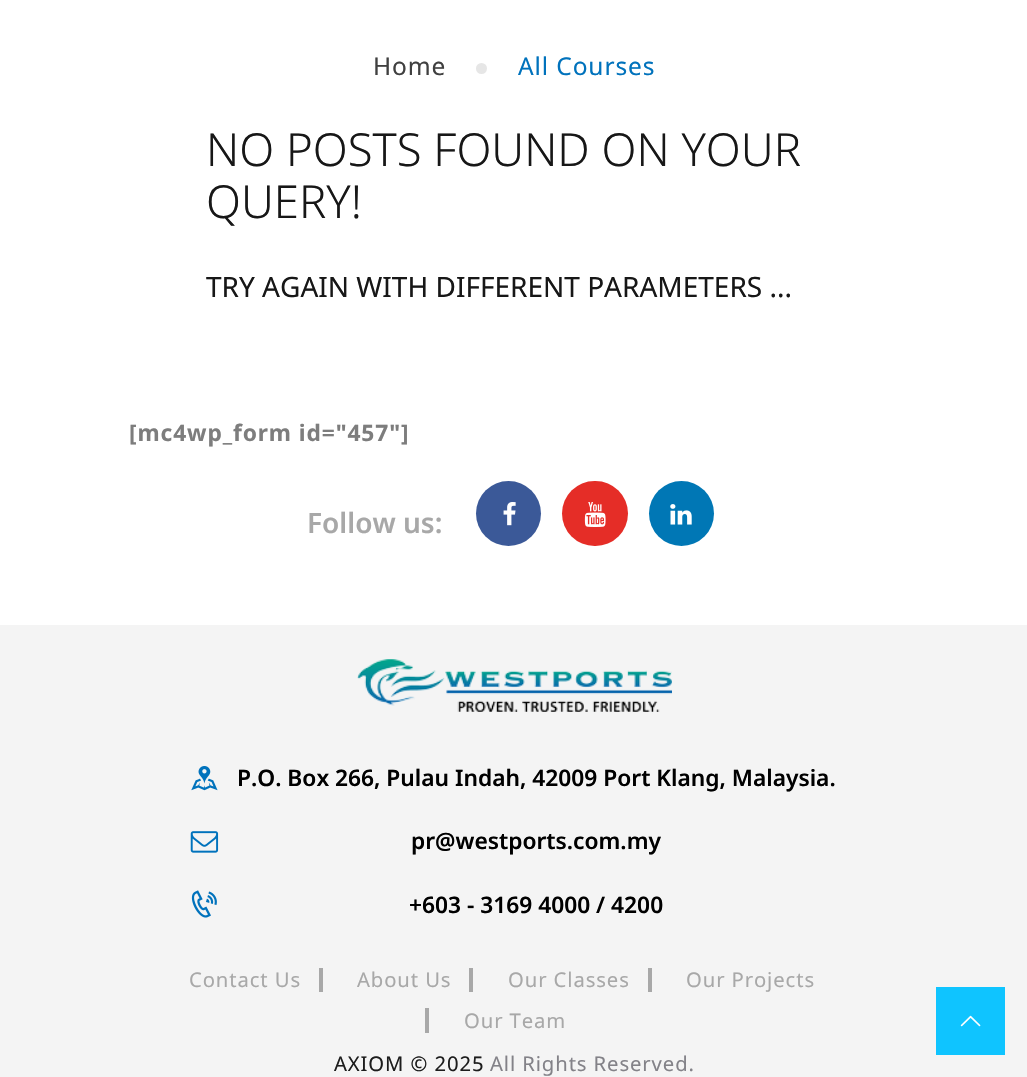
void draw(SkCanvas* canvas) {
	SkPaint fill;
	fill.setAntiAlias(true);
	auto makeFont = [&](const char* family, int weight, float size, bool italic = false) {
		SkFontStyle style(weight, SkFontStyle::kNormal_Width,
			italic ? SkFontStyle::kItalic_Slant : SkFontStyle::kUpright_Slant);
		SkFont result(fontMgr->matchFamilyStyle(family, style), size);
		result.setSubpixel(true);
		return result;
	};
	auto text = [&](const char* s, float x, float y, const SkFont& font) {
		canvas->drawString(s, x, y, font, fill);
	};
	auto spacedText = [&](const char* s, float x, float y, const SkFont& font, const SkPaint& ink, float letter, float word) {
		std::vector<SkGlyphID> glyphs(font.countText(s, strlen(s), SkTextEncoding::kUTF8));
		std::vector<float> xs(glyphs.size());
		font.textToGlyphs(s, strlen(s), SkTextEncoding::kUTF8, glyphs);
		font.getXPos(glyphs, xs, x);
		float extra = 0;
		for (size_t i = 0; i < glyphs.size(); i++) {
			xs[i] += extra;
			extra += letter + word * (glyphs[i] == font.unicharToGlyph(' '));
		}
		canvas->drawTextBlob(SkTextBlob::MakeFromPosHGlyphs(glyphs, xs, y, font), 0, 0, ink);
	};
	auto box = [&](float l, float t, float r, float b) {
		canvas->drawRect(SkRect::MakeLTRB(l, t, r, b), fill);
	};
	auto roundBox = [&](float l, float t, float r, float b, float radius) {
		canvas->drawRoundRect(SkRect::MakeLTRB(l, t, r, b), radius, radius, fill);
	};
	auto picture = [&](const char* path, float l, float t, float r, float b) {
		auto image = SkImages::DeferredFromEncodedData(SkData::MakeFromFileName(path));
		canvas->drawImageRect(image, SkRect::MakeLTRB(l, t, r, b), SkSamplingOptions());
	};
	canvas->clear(0xFFFFFFFF);
	fill.setColor(0xFFE6E6E6);
	canvas->drawCircle(481.5f, 68.5f, 5.5f, fill);
	fill.setColor(0xFF3B5998);
	canvas->drawCircle(508.5f, 513.5f, 32.5f, fill);
	picture("image0.png", 503, 502, 516, 526);
	fill.setColor(0xFFE52D27);
	roundBox(562, 481, 628, 546, 32.5f);
	picture("image1.png", 584, 502, 606, 527);
	fill.setColor(0xFF0077B5);
	canvas->drawCircle(681.5f, 513.5f, 32.5f, fill);
	picture("image2.png", 670, 504, 692, 525);
	fill.setColor(0xFFF4F4F4);
	box(0, 625, 1027, 1077);
	picture("image3.png", 357, 659, 672, 712);
	picture("image4.png", 191, 766, 218, 791);
	picture("image5.png", 190, 831, 219, 853);
	picture("image6.png", 191, 890, 217, 918);
	fill.setColor(0xFFA8A8A8);
	box(319, 968, 323, 992);
	box(469, 968, 473, 992);
	box(648, 968, 652, 992);
	box(425, 1008, 429, 1033);
	fill.setColor(0xFF0FC4FF);
	box(936, 987, 1005, 1055);
	picture("image7.png", 960, 1015, 981, 1027);
	auto font1 = makeFont("Noto Sans", 400, 24.5f);
	fill.setColor(0xFF404040);
	spacedText("Home", 373, 75, font1, fill, 0.9f, 0);
	fill.setColor(0xFF0072BC);
	spacedText("All Courses", 518, 75, font1, fill, 0.9f, 0);
	auto font2 = makeFont("Noto Sans", 300, 45.5f);
	fill.setColor(0xFF171717);
	text("NO POSTS FOUND ON YOUR", 206, 166, font2);
	text("QUERY!", 206, 218, font2);
	auto font3 = makeFont("Noto Sans", 400, 28);
	text("TRY AGAIN WITH DIFFERENT PARAMETERS ...", 206, 297, font3);
	auto font4 = makeFont("Noto Sans", 700, 22.75f);
	fill.setColor(0xFF7D7D7D);
	spacedText("[mc4wp_form id=\"457\"]", 129, 441, font4, fill, 0.9f, 0);
	auto font5 = makeFont("Noto Sans", 600, 28);
	fill.setColor(0xFFA8A8A8);
	text("Follow us:", 307, 533, font5);
	auto font6 = makeFont("Noto Sans", 600, 22.75f);
	fill.setColor(0xFF000000);
	text("P.O. Box 266, Pulau Indah, 42009 Port Klang, Malaysia.", 237, 786, font6);
	text("pr@westports.com.my", 411, 849, font6);
	text("+603 - 3169 4000 / 4200", 409, 913, font6);
	auto font7 = makeFont("Noto Sans", 400, 20.25f);
	fill.setColor(0xFFA8A8A8);
	spacedText("Contact Us", 189, 987, font7, fill, 0.9f, 0);
	spacedText("About Us", 357, 987, font7, fill, 0.9f, 0);
	spacedText("Our Classes", 508, 987, font7, fill, 0.9f, 0);
	spacedText("Our Projects", 686, 987, font7, fill, 0.9f, 0);
	spacedText("Our Team", 464, 1028, font7, fill, 0.9f, 0);
	fill.setColor(0xFF1D1D1D);
	spacedText("AXIOM © 2025", 334, 1071, font7, fill, 0.9f, 0);
	fill.setColor(0xFF838288);
	spacedText("All Rights Reserved.", 490, 1071, font7, fill, 0.9f, 0);
}
